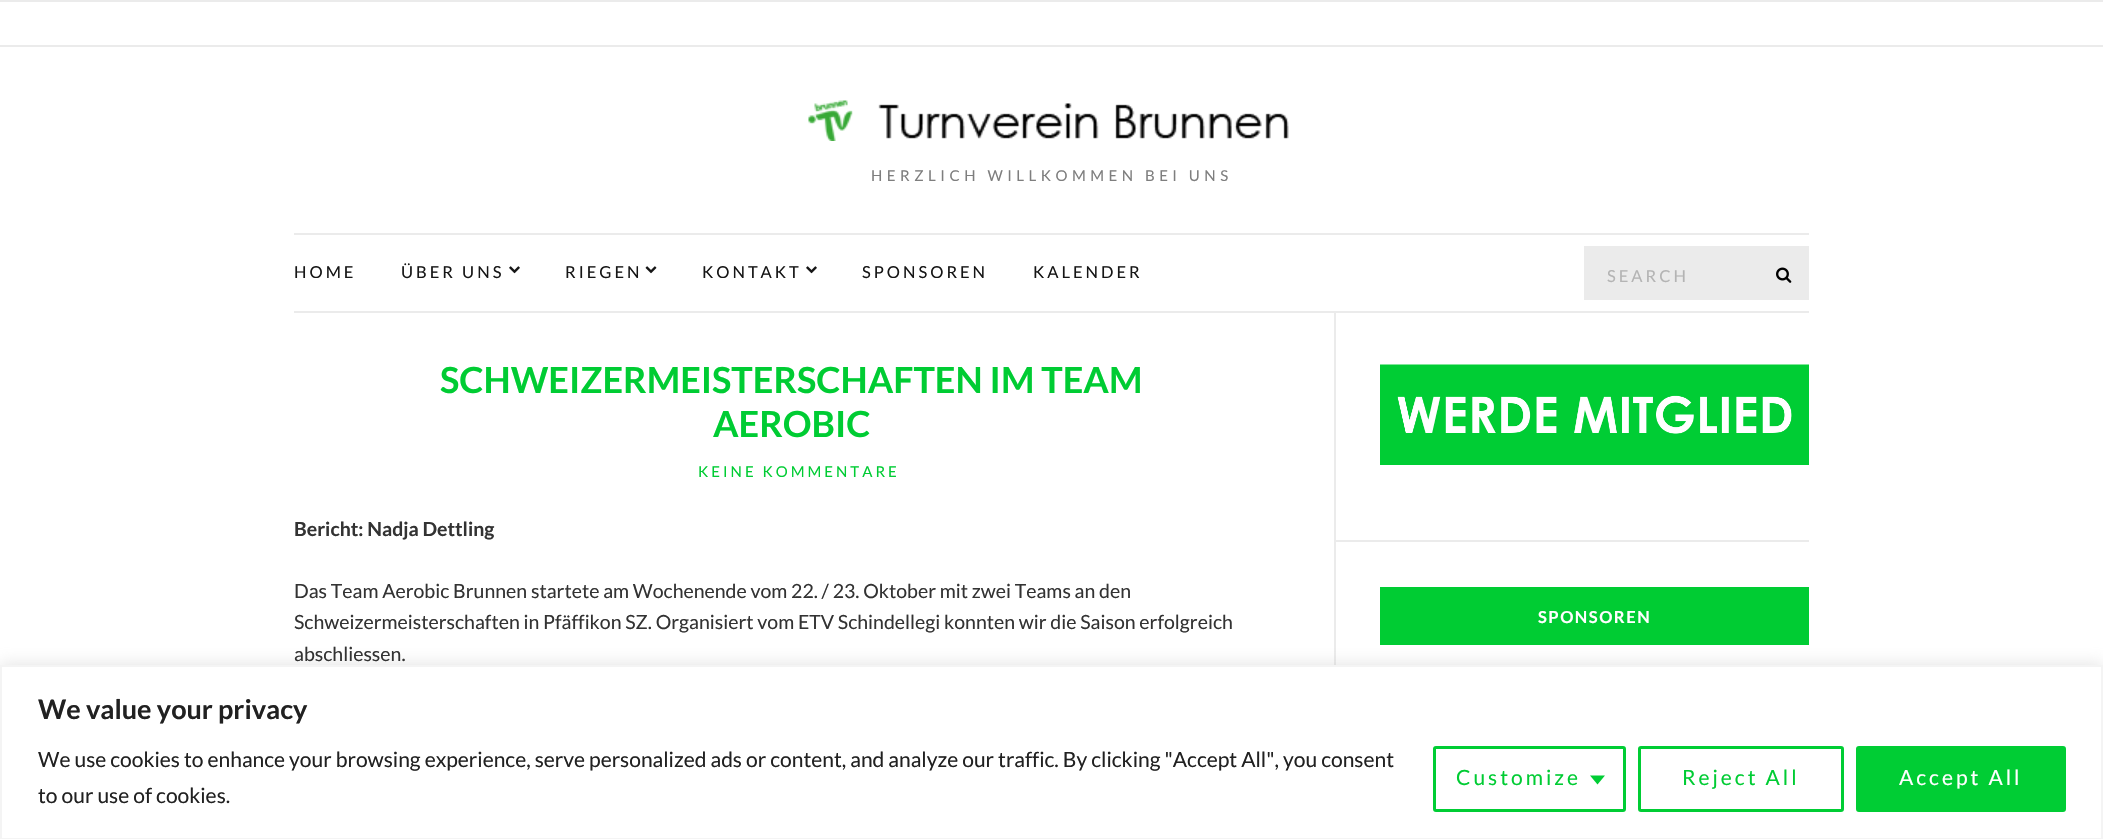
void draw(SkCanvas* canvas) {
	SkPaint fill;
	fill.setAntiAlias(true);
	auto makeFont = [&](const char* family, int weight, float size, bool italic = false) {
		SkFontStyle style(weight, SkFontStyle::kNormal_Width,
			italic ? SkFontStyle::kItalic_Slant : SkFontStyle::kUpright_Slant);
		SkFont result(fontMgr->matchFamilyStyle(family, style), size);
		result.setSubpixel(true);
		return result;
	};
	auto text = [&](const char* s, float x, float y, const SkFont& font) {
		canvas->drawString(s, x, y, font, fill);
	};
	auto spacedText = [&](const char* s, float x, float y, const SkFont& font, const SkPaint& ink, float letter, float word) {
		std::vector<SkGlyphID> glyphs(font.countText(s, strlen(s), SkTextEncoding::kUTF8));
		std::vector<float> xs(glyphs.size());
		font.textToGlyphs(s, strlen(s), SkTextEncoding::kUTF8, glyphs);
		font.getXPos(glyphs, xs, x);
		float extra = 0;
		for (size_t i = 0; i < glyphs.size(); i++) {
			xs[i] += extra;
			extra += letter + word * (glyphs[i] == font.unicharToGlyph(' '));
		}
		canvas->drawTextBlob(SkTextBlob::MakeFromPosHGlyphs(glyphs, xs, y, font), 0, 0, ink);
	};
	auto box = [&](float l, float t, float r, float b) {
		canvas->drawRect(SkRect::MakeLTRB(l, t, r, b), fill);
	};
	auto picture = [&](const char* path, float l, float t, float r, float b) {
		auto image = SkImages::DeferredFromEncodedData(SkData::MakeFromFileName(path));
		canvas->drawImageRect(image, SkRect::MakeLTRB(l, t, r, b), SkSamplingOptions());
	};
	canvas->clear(0xFFFFFFFF);
	fill.setColor(0xFFEBEBEB);
	box(0, 0, 2103, 2);
	box(0, 45, 2103, 47);
	picture("image0.png", 808, 100, 1289, 141);
	box(294, 233, 1809, 235);
	box(294, 311, 1809, 313);
	picture("image1.png", 509, 266, 520, 274);
	picture("image2.png", 645, 266, 657, 274);
	picture("image1.png", 806, 266, 817, 274);
	box(1584, 246, 1809, 300);
	picture("image3.png", 1776, 267, 1792, 283);
	box(1334, 312, 1336, 665);
	box(1335, 540, 1809, 542);
	picture("image4.png", 1380, 364, 1809, 465);
	fill.setColor(0xFF00CC33);
	box(1380, 587, 1809, 645);
	fill.setColor(0x4DACABAB);
	fill.setMaskFilter(SkMaskFilter::MakeBlur(kNormal_SkBlurStyle, 7.5f));
	canvas->drawRect(SkRect::MakeLTRB(0, 663, 2103, 839), fill);
	fill.setMaskFilter(nullptr);
	fill.setColor(0xFFFFFFFF);
	canvas->drawRect(SkRect::MakeLTRB(1, 666, 2102, 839), fill);
	fill.setStyle(SkPaint::kStroke_Style);
	fill.setStrokeWidth(2);
	fill.setColor(0xFFF4F4F4);
	canvas->drawRect(SkRect::MakeLTRB(1, 666, 2102, 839), fill);
	fill.setStrokeWidth(3);
	fill.setColor(0xFF00CD34);
	canvas->drawRoundRect(SkRect::MakeLTRB(1434.5f, 747.5f, 1624.5f, 810.5f), 1.5f, 1.5f, fill);
	fill.setStyle(SkPaint::kFill_Style);
	canvas->drawPath(SkPathBuilder().moveTo(1590, 775.5f).lineTo(1605, 775.5f).lineTo(1597.5f, 784.5f).close().detach(), fill);
	fill.setStyle(SkPaint::kStroke_Style);
	canvas->drawRoundRect(SkRect::MakeLTRB(1639.5f, 747.5f, 1842.5f, 810.5f), 1.5f, 1.5f, fill);
	fill.setStyle(SkPaint::kFill_Style);
	canvas->drawRoundRect(SkRect::MakeLTRB(1857.5f, 747.5f, 2064.5f, 810.5f), 1.5f, 1.5f, fill);
	fill.setStyle(SkPaint::kStroke_Style);
	canvas->drawRoundRect(SkRect::MakeLTRB(1857.5f, 747.5f, 2064.5f, 810.5f), 1.5f, 1.5f, fill);
	auto font1 = makeFont("Lato", 400, 15);
	fill.setStyle(SkPaint::kFill_Style);
	fill.setColor(0xFF7E7E7E);
	spacedText("HERZLICH WILLKOMMEN BEI UNS", 871, 181, font1, fill, 4.5f, 0);
	auto font2 = makeFont("Lato", 400, 16.5f);
	fill.setColor(0xFF161616);
	spacedText("HOME", 294, 278, font2, fill, 3, 0);
	spacedText("ÜBER UNS", 401, 278, font2, fill, 3, 0);
	spacedText("RIEGEN", 565, 278, font2, fill, 3, 0);
	spacedText("KONTAKT", 702, 278, font2, fill, 3, 0);
	spacedText("SPONSOREN", 862, 278, font2, fill, 3, 0);
	spacedText("KALENDER", 1033, 278, font2, fill, 3, 0);
	fill.setColor(0xFFB4B4B4);
	spacedText("SEARCH", 1607, 282, font2, fill, 3, 0);
	auto font3 = makeFont("Lato", 700, 36);
	fill.setColor(0xFF00CC33);
	text("SCHWEIZERMEISTERSCHAFTEN IM TEAM", 440, 393, font3);
	text("AEROBIC", 713, 437, font3);
	spacedText("KEINE KOMMENTARE", 698, 477, font1, fill, 3, 0);
	auto font4 = makeFont("Lato", 700, 19.5f);
	fill.setColor(0xFF333333);
	text("Bericht: Nadja Dettling", 294, 536, font4);
	auto font5 = makeFont("Lato", 400, 19.5f);
	text("Das Team Aerobic Brunnen startete am Wochenende vom 22. / 23. Oktober mit zwei Teams an den", 294, 598, font5);
	text("Schweizermeisterschaften in Pfäffikon SZ. Organisiert vom ETV Schindellegi konnten wir die Saison erfolgreich", 294, 629, font5);
	text("abschliessen.", 294, 661, font5);
	auto font6 = makeFont("Lato", 700, 16.5f);
	fill.setColor(0xFFFFFFFF);
	spacedText("SPONSOREN", 1538, 623, font6, fill, 1.5f, 0);
	auto font7 = makeFont("Lato", 700, 27);
	fill.setColor(0xFF212121);
	text("We value your privacy", 38, 719, font7);
	auto font8 = makeFont("Lato", 400, 21);
	text("We use cookies to enhance your browsing experience, serve personalized ads or content, and analyze our traffic. By clicking \"Accept All\", you consent", 38, 767, font8);
	text("to our use of cookies.", 38, 803, font8);
	fill.setColor(0xFF00CC33);
	spacedText("Customize", 1456, 785, font8, fill, 3, 0);
	spacedText("Reject All", 1682, 785, font8, fill, 3, 0);
	fill.setColor(0xFFFFFFFF);
	spacedText("Accept All", 1899, 785, font8, fill, 3, 0);
}
